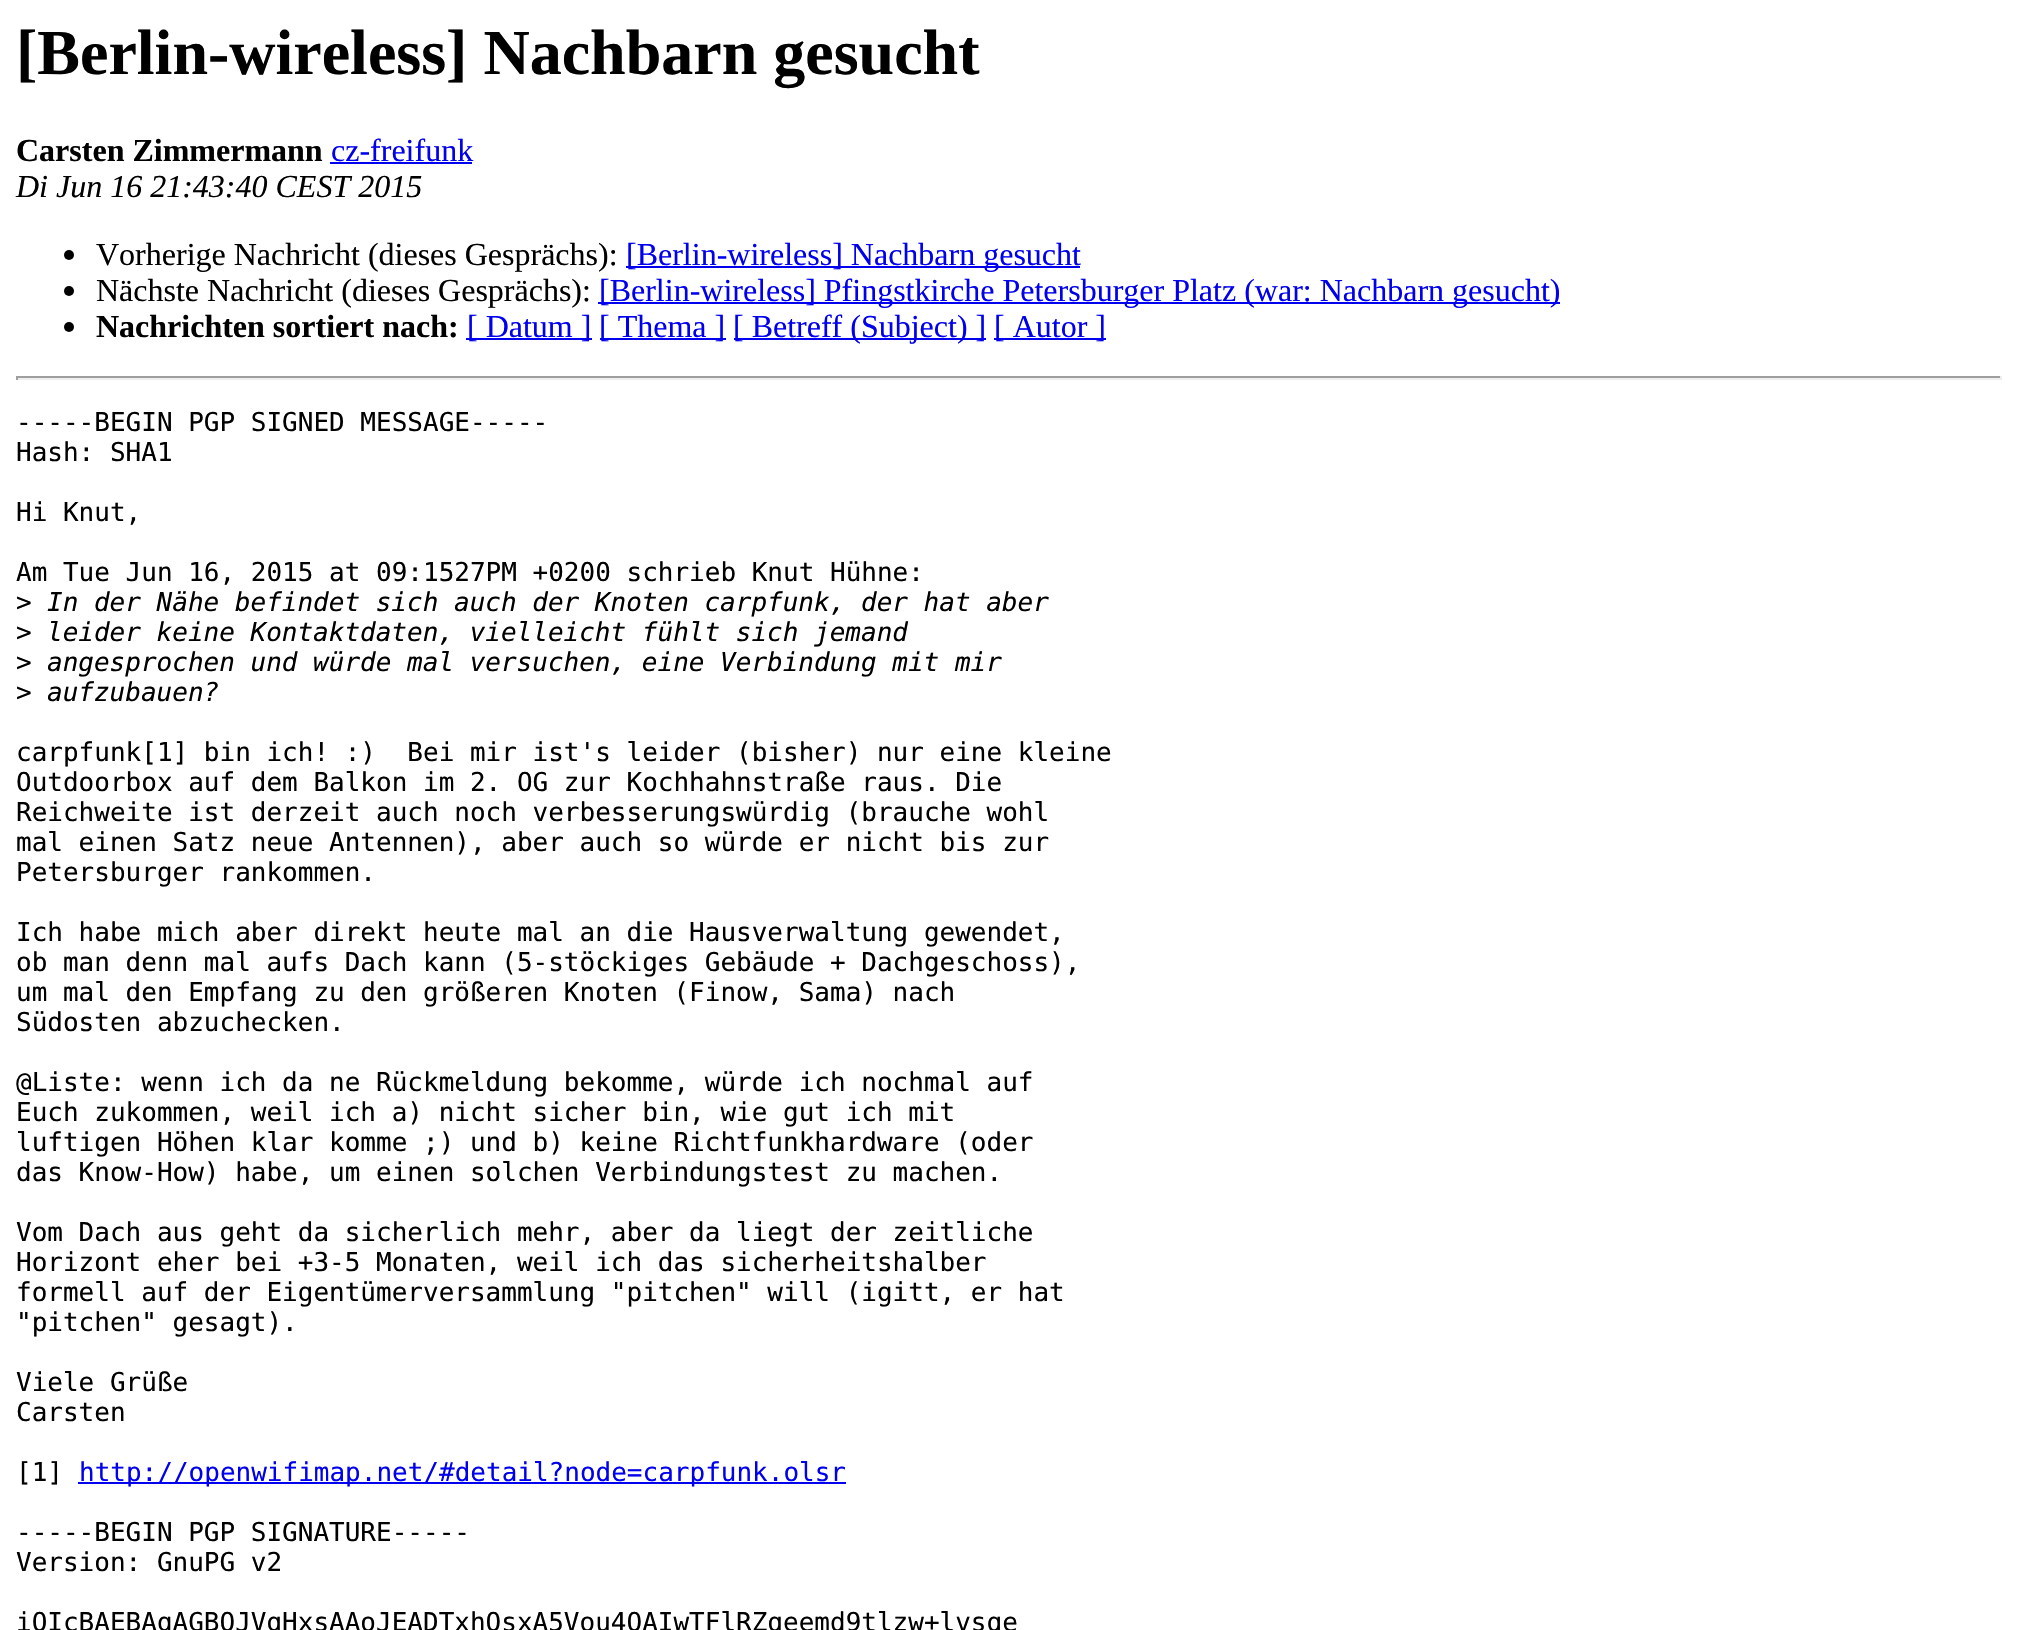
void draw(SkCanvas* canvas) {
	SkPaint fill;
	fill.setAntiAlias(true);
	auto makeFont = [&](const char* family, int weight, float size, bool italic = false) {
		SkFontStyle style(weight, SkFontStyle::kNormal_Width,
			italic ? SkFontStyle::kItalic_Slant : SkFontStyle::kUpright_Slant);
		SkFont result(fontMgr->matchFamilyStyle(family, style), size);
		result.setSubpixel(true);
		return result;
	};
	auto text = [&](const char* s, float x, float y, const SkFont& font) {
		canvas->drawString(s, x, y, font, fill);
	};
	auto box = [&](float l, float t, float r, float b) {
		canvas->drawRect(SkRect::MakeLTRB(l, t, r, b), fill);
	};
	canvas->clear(0xFFFFFFFF);
	fill.setColor(0xFF0000EE);
	box(330, 162, 472, 164);
	fill.setColor(0xFF000000);
	canvas->drawCircle(69, 255, 5, fill);
	fill.setColor(0xFF0000EE);
	box(626, 266, 1080, 268);
	fill.setColor(0xFF000000);
	canvas->drawCircle(69, 291, 5, fill);
	fill.setColor(0xFF0000EE);
	box(598, 302, 1560, 304);
	fill.setColor(0xFF000000);
	canvas->drawCircle(69, 327, 5, fill);
	fill.setColor(0xFF0000EE);
	box(466, 338, 592, 340);
	box(600, 338, 726, 340);
	box(734, 338, 986, 340);
	box(994, 338, 1106, 340);
	fill.setColor(0xFF9F9F9F);
	box(16, 376, 2002, 378);
	fill.setColor(0xFFEEEEEE);
	box(2000, 376, 2002, 380);
	box(16, 378, 2002, 380);
	fill.setColor(0xFF9F9F9F);
	box(16, 376, 18, 380);
	fill.setColor(0xFF0000EE);
	box(78, 1482, 846, 1484);
	auto font1 = makeFont("Liberation Serif", 700, 64);
	fill.setColor(0xFF000000);
	text("[Berlin-wireless] Nachbarn gesucht", 16, 74, font1);
	auto font2 = makeFont("Liberation Serif", 700, 32);
	text("Carsten Zimmermann", 16, 161, font2);
	auto font3 = makeFont("Liberation Serif", 400, 32);
	fill.setColor(0xFF0000EE);
	text("cz-freifunk", 331, 161, font3);
	auto font4 = makeFont("Liberation Serif", 400, 32, true);
	fill.setColor(0xFF000000);
	text("Di Jun 16 21:43:40 CEST 2015", 16, 197, font4);
	text("Vorherige Nachricht (dieses Gesprächs):", 96, 265, font3);
	fill.setColor(0xFF0000EE);
	text("[Berlin-wireless] Nachbarn gesucht", 626, 265, font3);
	fill.setColor(0xFF000000);
	text("Nächste Nachricht (dieses Gesprächs):", 96, 301, font3);
	fill.setColor(0xFF0000EE);
	text("[Berlin-wireless] Pfingstkirche Petersburger Platz (war: Nachbarn gesucht)", 599, 301, font3);
	fill.setColor(0xFF000000);
	text("Nachrichten sortiert nach:", 96, 337, font2);
	fill.setColor(0xFF0000EE);
	text("[ Datum ]", 467, 337, font3);
	text("[ Thema ]", 599, 337, font3);
	text("[ Betreff (Subject) ]", 733, 337, font3);
	text("[ Autor ]", 994, 337, font3);
	auto font5 = makeFont("DejaVu Sans Mono", 400, 26);
	fill.setColor(0xFF000000);
	text("-----BEGIN PGP SIGNED MESSAGE-----", 16, 431, font5);
	text("Hash: SHA1", 16, 461, font5);
	text("Hi Knut,", 16, 521, font5);
	text("Am Tue Jun 16, 2015 at 09:1527PM +0200 schrieb Knut Hühne:", 16, 581, font5);
	text(">", 16, 611, font5);
	auto font6 = makeFont("DejaVu Sans Mono", 400, 26, true);
	text("In der Nähe befindet sich auch der Knoten carpfunk, der hat aber", 47, 611, font6);
	text(">", 16, 641, font5);
	text("leider keine Kontaktdaten, vielleicht fühlt sich jemand", 47, 641, font6);
	text(">", 16, 671, font5);
	text("angesprochen und würde mal versuchen, eine Verbindung mit mir", 47, 671, font6);
	text(">", 16, 701, font5);
	text("aufzubauen?", 47, 701, font6);
	text("carpfunk[1] bin ich! :)  Bei mir ist's leider (bisher) nur eine kleine", 16, 761, font5);
	text("Outdoorbox auf dem Balkon im 2. OG zur Kochhahnstraße raus. Die", 16, 791, font5);
	text("Reichweite ist derzeit auch noch verbesserungswürdig (brauche wohl", 16, 821, font5);
	text("mal einen Satz neue Antennen), aber auch so würde er nicht bis zur", 16, 851, font5);
	text("Petersburger rankommen.", 16, 881, font5);
	text("Ich habe mich aber direkt heute mal an die Hausverwaltung gewendet,", 16, 941, font5);
	text("ob man denn mal aufs Dach kann (5-stöckiges Gebäude + Dachgeschoss),", 16, 971, font5);
	text("um mal den Empfang zu den größeren Knoten (Finow, Sama) nach", 16, 1001, font5);
	text("Südosten abzuchecken.", 16, 1031, font5);
	text("@Liste: wenn ich da ne Rückmeldung bekomme, würde ich nochmal auf", 16, 1091, font5);
	text("Euch zukommen, weil ich a) nicht sicher bin, wie gut ich mit", 16, 1121, font5);
	text("luftigen Höhen klar komme ;) und b) keine Richtfunkhardware (oder", 16, 1151, font5);
	text("das Know-How) habe, um einen solchen Verbindungstest zu machen.", 16, 1181, font5);
	text("Vom Dach aus geht da sicherlich mehr, aber da liegt der zeitliche", 16, 1241, font5);
	text("Horizont eher bei +3-5 Monaten, weil ich das sicherheitshalber", 16, 1271, font5);
	text("formell auf der Eigentümerversammlung \"pitchen\" will (igitt, er hat", 16, 1301, font5);
	text("\"pitchen\" gesagt).", 16, 1331, font5);
	text("Viele Grüße", 16, 1391, font5);
	text("Carsten", 16, 1421, font5);
	text("[1]", 16, 1481, font5);
	fill.setColor(0xFF0000EE);
	text("http://openwifimap.net/#detail?node=carpfunk.olsr", 79, 1481, font5);
	fill.setColor(0xFF000000);
	text("-----BEGIN PGP SIGNATURE-----", 16, 1541, font5);
	text("Version: GnuPG v2", 16, 1571, font5);
	text("iQIcBAEBAgAGBQJVgHxsAAoJEADTxhOsxA5Vou4QAIwTFlRZqeemd9tlzw+lvsqe", 16, 1631, font5);
}
